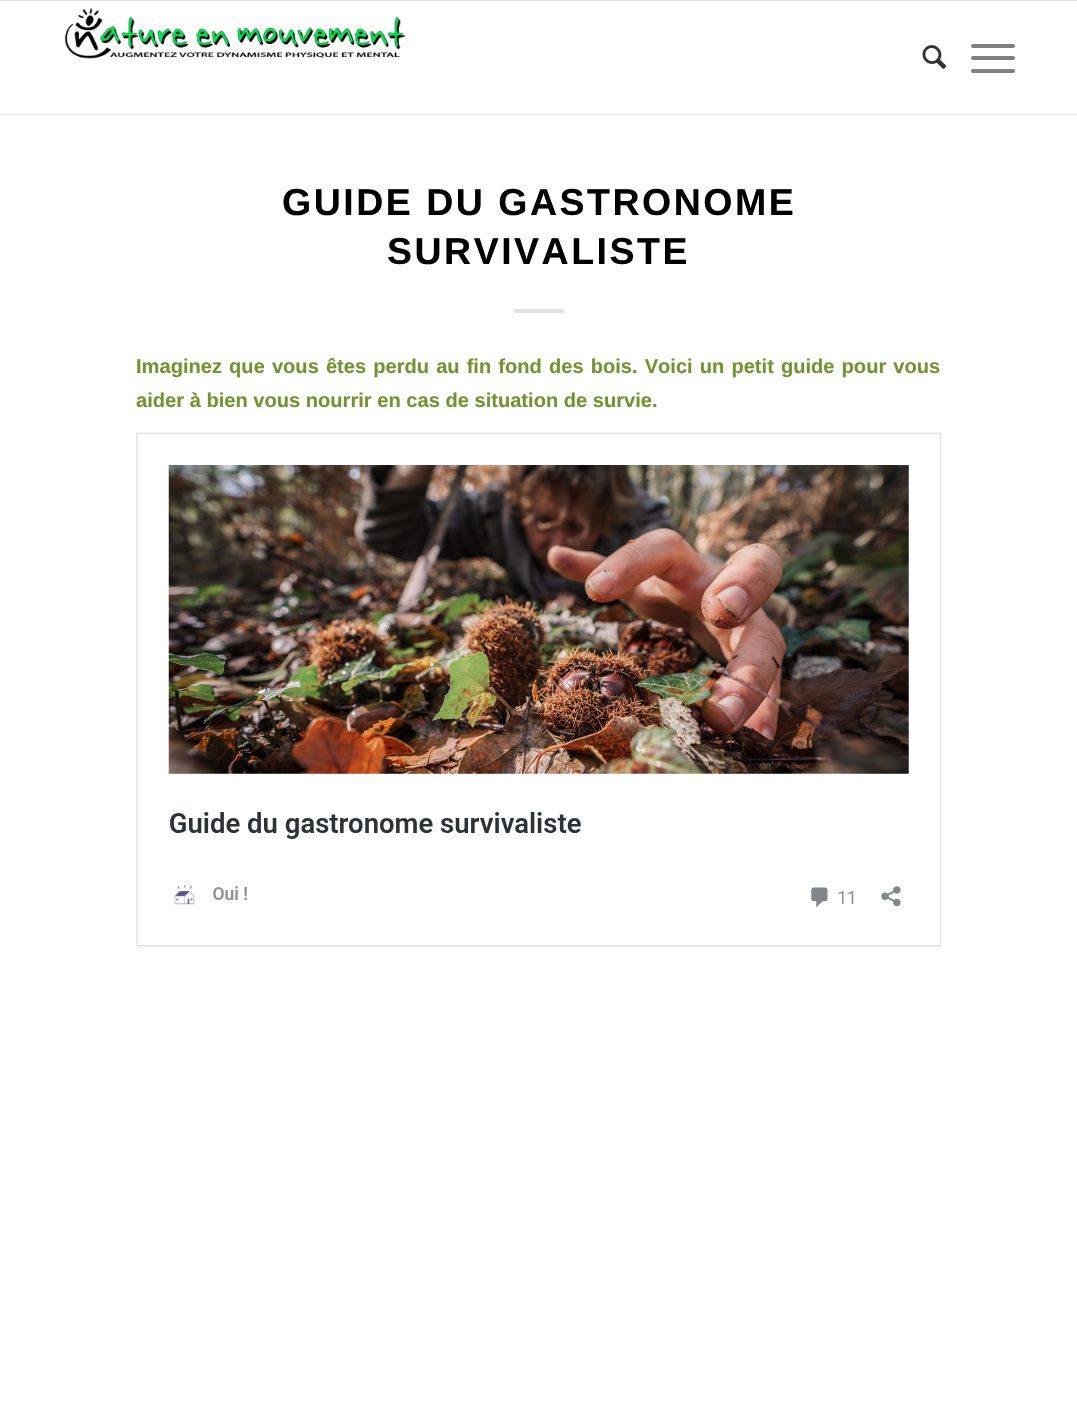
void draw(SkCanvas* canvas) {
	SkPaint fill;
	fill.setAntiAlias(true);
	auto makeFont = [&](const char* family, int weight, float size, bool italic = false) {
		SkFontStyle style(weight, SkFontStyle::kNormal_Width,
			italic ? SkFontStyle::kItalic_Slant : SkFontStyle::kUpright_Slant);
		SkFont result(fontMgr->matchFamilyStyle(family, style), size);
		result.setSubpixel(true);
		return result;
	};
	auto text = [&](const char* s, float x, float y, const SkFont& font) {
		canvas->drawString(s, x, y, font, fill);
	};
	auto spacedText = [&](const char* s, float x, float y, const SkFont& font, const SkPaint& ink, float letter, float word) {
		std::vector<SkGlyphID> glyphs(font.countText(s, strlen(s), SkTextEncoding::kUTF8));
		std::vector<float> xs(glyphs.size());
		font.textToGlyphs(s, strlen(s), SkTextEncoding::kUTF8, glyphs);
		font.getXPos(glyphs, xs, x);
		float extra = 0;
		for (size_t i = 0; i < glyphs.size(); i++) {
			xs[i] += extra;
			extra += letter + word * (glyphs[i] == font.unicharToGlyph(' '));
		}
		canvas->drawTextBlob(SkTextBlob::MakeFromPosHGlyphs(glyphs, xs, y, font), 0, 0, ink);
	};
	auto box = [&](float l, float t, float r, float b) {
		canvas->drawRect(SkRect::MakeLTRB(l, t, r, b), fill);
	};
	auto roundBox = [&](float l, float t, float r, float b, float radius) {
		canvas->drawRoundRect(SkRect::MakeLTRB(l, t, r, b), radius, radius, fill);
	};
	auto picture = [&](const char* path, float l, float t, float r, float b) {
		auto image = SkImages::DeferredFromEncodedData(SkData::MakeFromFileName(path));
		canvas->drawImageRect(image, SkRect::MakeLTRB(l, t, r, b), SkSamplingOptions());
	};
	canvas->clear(0xFFFFFFFF);
	fill.setColor(0xFFE1E1E1);
	box(0, 0, 1077, 1);
	box(0, 114, 1077, 115);
	picture("image0.png", 64, 8, 405, 59);
	picture("image1.png", 922, 45, 947, 69);
	fill.setColor(0xFF808080);
	roundBox(971, 56, 1015, 60, 2);
	roundBox(971, 44, 1015, 48, 2);
	roundBox(971, 69, 1015, 73, 2);
	fill.setColor(0xFFE1E1E1);
	box(514, 309, 564, 313);
	picture("image2.png", 136, 432, 941, 948);
	auto font1 = makeFont("Liberation Sans", 700, 37.5f);
	fill.setColor(0xFF000000);
	spacedText("GUIDE DU GASTRONOME", 282, 215, font1, fill, 2.5f, 0);
	spacedText("SURVIVALISTE", 387, 264, font1, fill, 2.5f, 0);
	auto font2 = makeFont("Liberation Sans", 700, 20.1f);
	fill.setColor(0xFF719430);
	spacedText("Imaginez que vous êtes perdu au fin fond des bois. Voici un petit guide pour vous", 136, 373, font2, fill, 0, 1.5f);
	text("aider à bien vous nourrir en cas de situation de survie.", 136, 407, font2);
}
